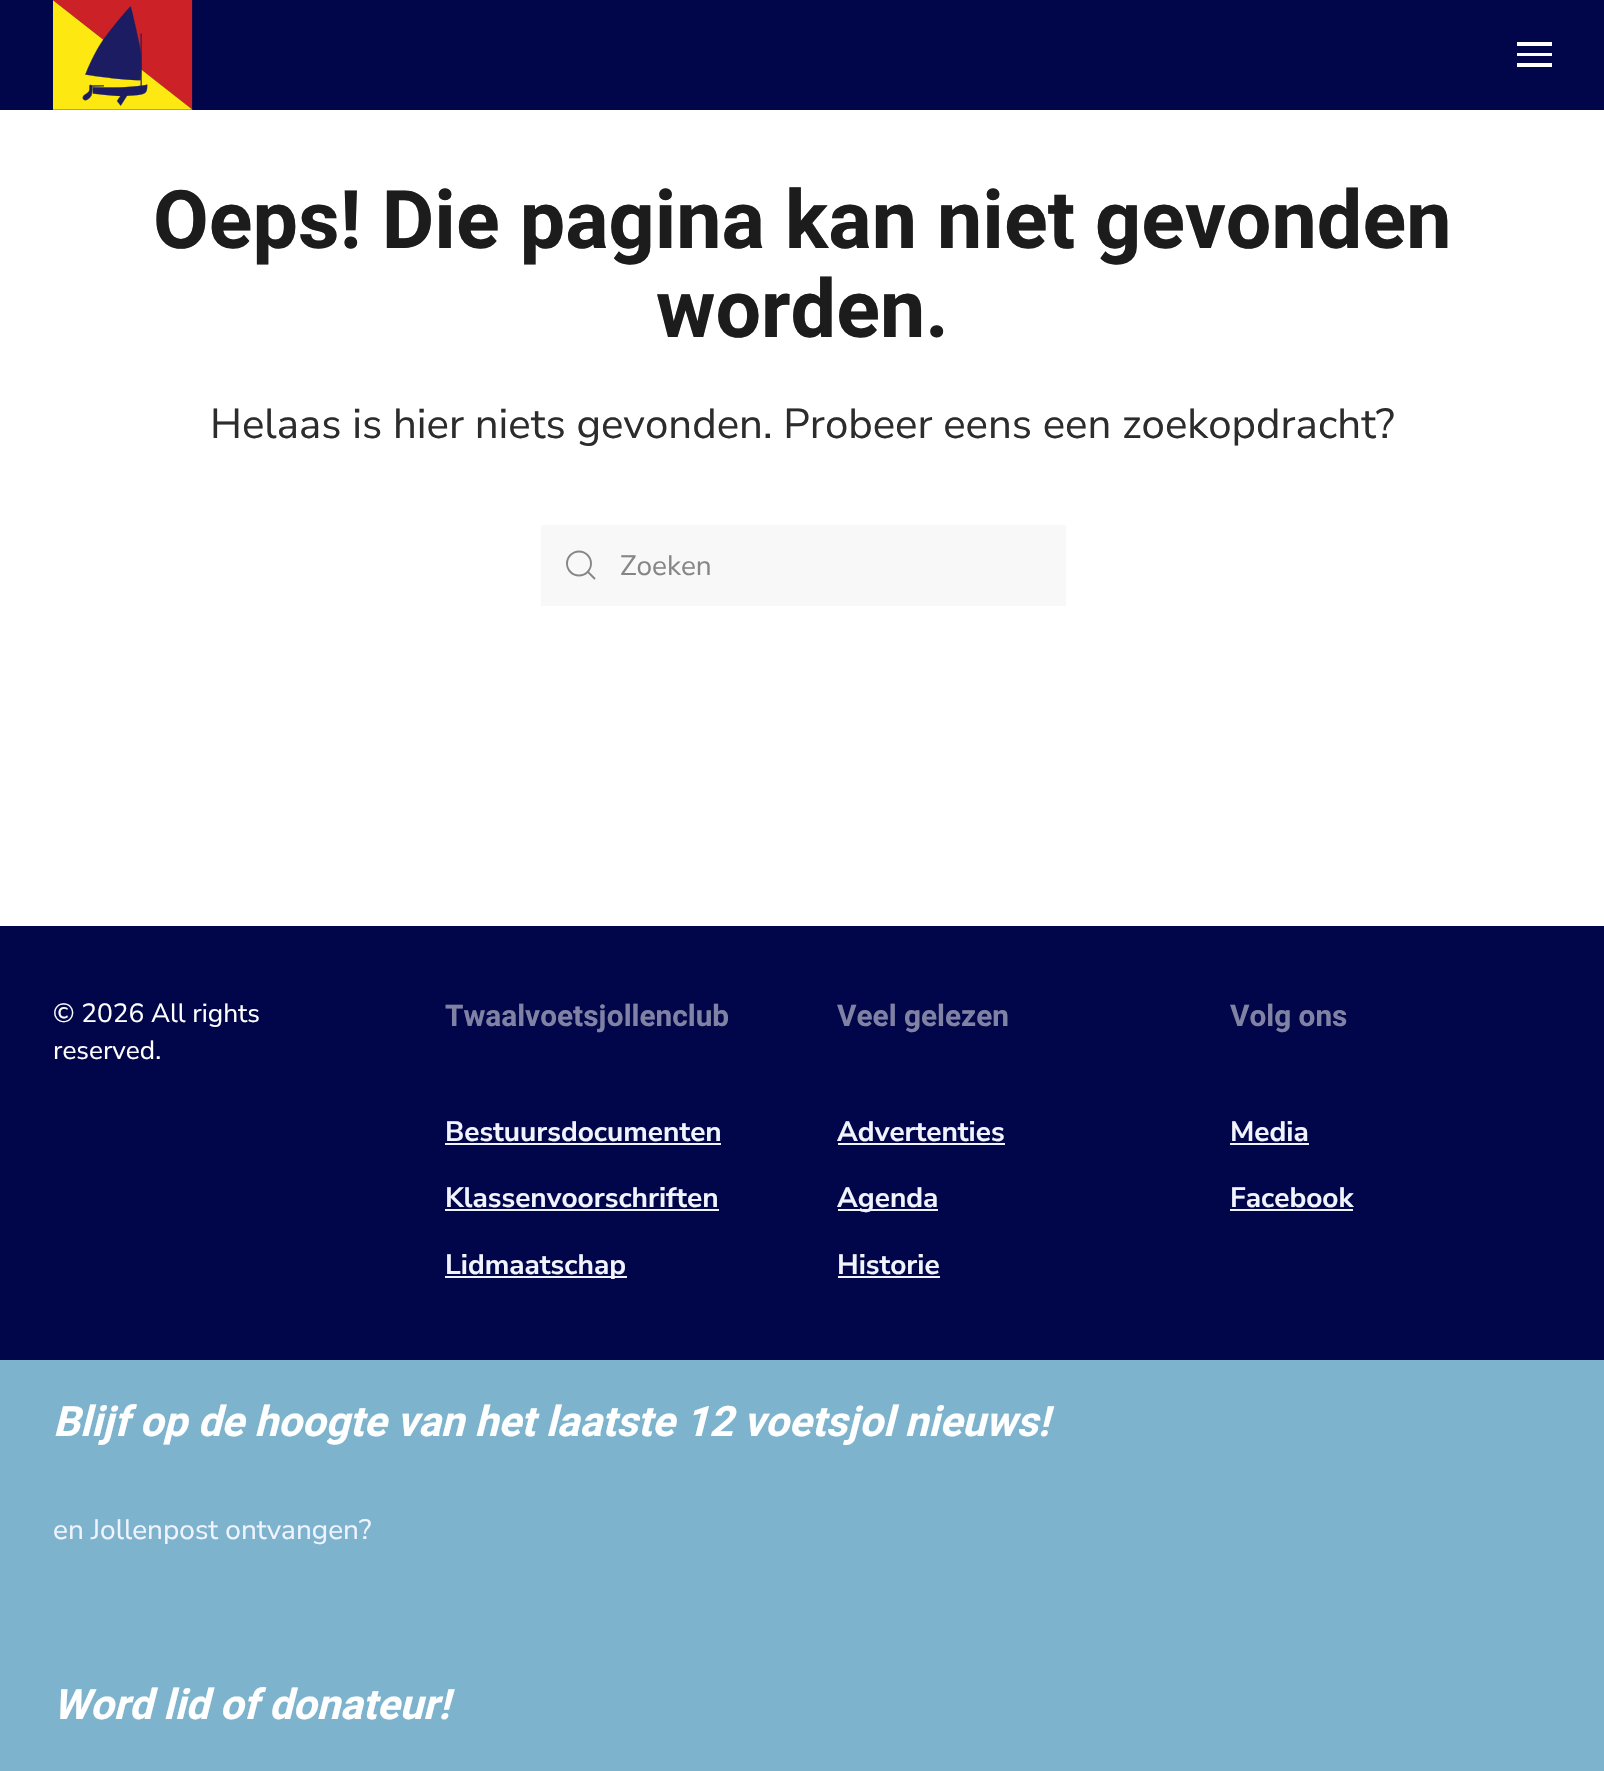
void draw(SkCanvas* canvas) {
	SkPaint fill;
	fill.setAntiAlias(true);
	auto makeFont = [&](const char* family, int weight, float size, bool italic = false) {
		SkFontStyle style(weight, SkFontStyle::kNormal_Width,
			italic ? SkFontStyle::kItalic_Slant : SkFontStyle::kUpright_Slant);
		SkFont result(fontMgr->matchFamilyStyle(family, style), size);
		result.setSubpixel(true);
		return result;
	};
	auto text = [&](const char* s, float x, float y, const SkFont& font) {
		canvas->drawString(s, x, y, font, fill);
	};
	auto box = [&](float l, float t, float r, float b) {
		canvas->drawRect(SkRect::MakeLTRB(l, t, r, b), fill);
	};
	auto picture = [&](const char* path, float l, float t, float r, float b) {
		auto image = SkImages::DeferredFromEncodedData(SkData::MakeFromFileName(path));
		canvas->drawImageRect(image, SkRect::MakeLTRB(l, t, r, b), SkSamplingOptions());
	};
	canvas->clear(0xFFFFFFFF);
	fill.setColor(0xFF010549);
	box(0, 0, 1604, 110);
	picture("image0.png", 53, 0, 193, 110);
	fill.setColor(0xFFFFFFFF);
	box(1517, 42, 1552, 46);
	box(1517, 53, 1552, 56);
	box(1517, 63, 1552, 67);
	fill.setColor(0xFFF8F8F8);
	box(541, 525, 1066, 606);
	fill.setStyle(SkPaint::kStroke_Style);
	fill.setStrokeWidth(1.9f);
	fill.setColor(0xFF868686);
	canvas->drawCircle(579, 563.5f, 12, fill);
	canvas->drawPath(SkPathBuilder().moveTo(588, 572).lineTo(595, 579).close().detach(), fill);
	fill.setStyle(SkPaint::kFill_Style);
	fill.setColor(0xFF010549);
	box(0, 926, 1604, 1360);
	fill.setColor(0xFFF1F4FF);
	box(445, 1143, 721, 1145);
	box(445, 1209, 719, 1211);
	box(445, 1276, 627, 1278);
	box(838, 1143, 1005, 1145);
	box(838, 1209, 938, 1211);
	box(838, 1276, 940, 1278);
	box(1230, 1143, 1309, 1145);
	box(1230, 1209, 1353, 1211);
	fill.setColor(0xFF7DB3CD);
	box(0, 1360, 1604, 1771);
	auto font1 = makeFont("Heebo", 700, 80.8f);
	fill.setColor(0xFF1C1C1C);
	text("Oeps! Die pagina kan niet gevonden", 153, 248, font1);
	text("worden.", 656, 337, font1);
	auto font2 = makeFont("Nunito Sans", 200, 42);
	fill.setColor(0xFF2C2C2C);
	text("Helaas is hier niets gevonden. Probeer eens een zoekopdracht?", 210, 438, font2);
	auto font3 = makeFont("Nunito Sans", 200, 28);
	fill.setColor(0xFF868686);
	text("Zoeken", 620, 575, font3);
	auto font4 = makeFont("Nunito Sans", 200, 26.25f);
	fill.setColor(0xFFFFFFFF);
	text("© 2026 All rights", 53, 1022, font4);
	text("reserved.", 53, 1059, font4);
	auto font5 = makeFont("Heebo", 700, 29.75f);
	fill.setColor(0xFF8082A4);
	text("Twaalvoetsjollenclub", 445, 1026, font5);
	auto font6 = makeFont("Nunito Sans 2", 200, 28);
	fill.setColor(0xFFF1F4FF);
	text("Bestuursdocumenten", 445, 1141, font6);
	text("Klassenvoorschriften", 445, 1207, font6);
	text("Lidmaatschap", 445, 1274, font6);
	fill.setColor(0xFF8082A4);
	text("Veel gelezen", 837, 1026, font5);
	fill.setColor(0xFFF1F4FF);
	text("Advertenties", 837, 1141, font6);
	text("Agenda", 837, 1207, font6);
	text("Historie", 837, 1274, font6);
	fill.setColor(0xFF8082A4);
	text("Volg ons", 1230, 1026, font5);
	fill.setColor(0xFFF1F4FF);
	text("Media", 1230, 1141, font6);
	text("Facebook", 1230, 1207, font6);
	auto font7 = makeFont("Heebo", 700, 42, true);
	fill.setColor(0xFFFFFFFF);
	text("Blijf op de hoogte van het laatste 12 voetsjol nieuws!", 53, 1436, font7);
	fill.setColor(0xFFF1F4FF);
	text("en Jollenpost ontvangen?", 53, 1539, font3);
	fill.setColor(0xFFFFFFFF);
	text("Word lid of donateur!", 53, 1719, font7);
}
